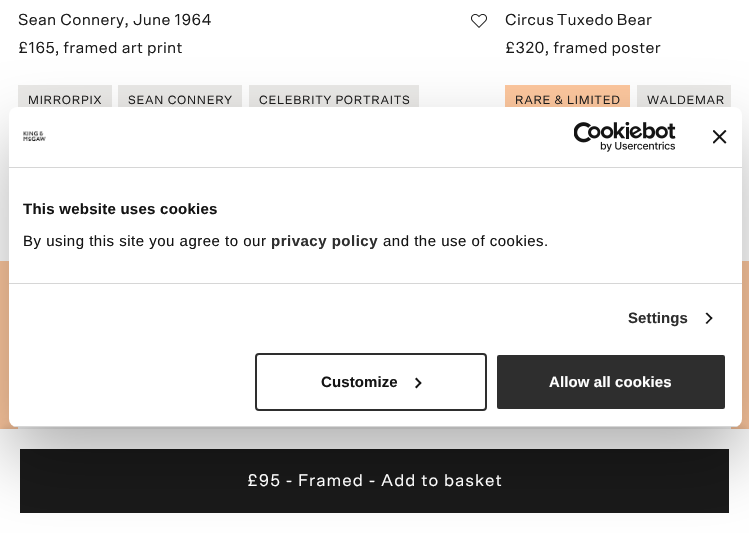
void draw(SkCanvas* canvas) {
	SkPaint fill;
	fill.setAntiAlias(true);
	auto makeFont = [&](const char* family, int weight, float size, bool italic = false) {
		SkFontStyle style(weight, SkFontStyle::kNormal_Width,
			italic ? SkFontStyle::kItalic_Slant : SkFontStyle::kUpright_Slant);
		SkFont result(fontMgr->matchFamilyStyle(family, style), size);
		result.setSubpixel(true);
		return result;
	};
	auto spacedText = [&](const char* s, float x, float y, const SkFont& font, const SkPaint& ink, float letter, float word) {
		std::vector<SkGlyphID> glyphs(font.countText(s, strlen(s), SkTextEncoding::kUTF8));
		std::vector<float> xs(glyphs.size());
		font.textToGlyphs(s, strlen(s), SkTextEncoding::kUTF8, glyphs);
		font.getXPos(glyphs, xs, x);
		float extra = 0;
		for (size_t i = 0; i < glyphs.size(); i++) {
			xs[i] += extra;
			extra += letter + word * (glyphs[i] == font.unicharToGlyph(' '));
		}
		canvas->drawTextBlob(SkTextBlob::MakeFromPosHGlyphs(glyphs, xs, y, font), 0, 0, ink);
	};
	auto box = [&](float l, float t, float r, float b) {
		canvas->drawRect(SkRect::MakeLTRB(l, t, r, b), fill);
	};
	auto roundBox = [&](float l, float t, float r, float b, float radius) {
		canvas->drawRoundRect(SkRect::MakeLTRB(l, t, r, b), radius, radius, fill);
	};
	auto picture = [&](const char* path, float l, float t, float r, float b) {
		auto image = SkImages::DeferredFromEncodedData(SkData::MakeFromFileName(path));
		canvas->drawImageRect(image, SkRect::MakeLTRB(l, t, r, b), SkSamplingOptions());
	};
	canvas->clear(0xFFFFFFFF);
	picture("image0.png", 471, 14, 487, 28);
	fill.setColor(0xFFEAE9E7);
	box(18, 85, 112, 107);
	box(118, 85, 242, 107);
	box(249, 85, 419, 107);
	fill.setColor(0xFFFDC79E);
	box(505, 85, 630, 107);
	fill.setColor(0xFFEAE9E7);
	box(637, 85, 731, 107);
	fill.setColor(0xFFFDC79E);
	box(0, 261, 749, 429);
	fill.setColor(0xFFFFFFFF);
	box(18, 427, 731, 429);
	fill.setColor(0x1A000000);
	fill.setMaskFilter(SkMaskFilter::MakeBlur(kNormal_SkBlurStyle, 3));
	canvas->drawRect(SkRect::MakeLTRB(2, 427, 747, 527), fill);
	fill.setMaskFilter(nullptr);
	fill.setColor(0xFF1A1A1A);
	canvas->drawRect(SkRect::MakeLTRB(10, 439, 739, 523), fill);
	fill.setStyle(SkPaint::kStroke_Style);
	fill.setStrokeWidth(20);
	fill.setColor(0xFFFFFFFF);
	canvas->drawRect(SkRect::MakeLTRB(10, 439, 739, 523), fill);
	fill.setStyle(SkPaint::kFill_Style);
	fill.setColor(0x4D000000);
	fill.setMaskFilter(SkMaskFilter::MakeBlur(kNormal_SkBlurStyle, 34));
	canvas->drawRoundRect(SkRect::MakeLTRB(9, 139, 742, 459), 8, 8, fill);
	fill.setMaskFilter(nullptr);
	fill.setColor(0xFFFFFFFF);
	roundBox(9, 107, 742, 427, 8);
	fill.setColor(0xFFD6D6D6);
	box(9, 167, 742, 168);
	picture("image1.png", 23, 131, 46, 142);
	picture("image2.png", 574, 122, 676, 152);
	picture("image3.png", 713, 130, 727, 144);
	box(9, 283, 742, 284);
	fill.setColor(0xFF141414);
	canvas->drawPath(SkPathBuilder().moveTo(707, 312.5f).lineTo(712.5f, 318).lineTo(711.5f, 319.5f).lineTo(705.5f, 313.5f).close().detach(), fill);
	canvas->drawPath(SkPathBuilder().moveTo(711.5f, 317).lineTo(712.5f, 318).lineTo(707, 324).lineTo(705.5f, 323).close().detach(), fill);
	canvas->save();
	canvas->clipPath(SkPathBuilder().moveTo(17, 107).lineTo(734, 107).cubicTo(738.5f, 107, 742, 110.5f, 742, 115).lineTo(742, 419).cubicTo(742, 423.5f, 738.5f, 427, 734, 427).lineTo(17, 427).cubicTo(12.5f, 427, 9, 423.5f, 9, 419).lineTo(9, 115).cubicTo(9, 110.5f, 12.5f, 107, 17, 107).close().detach(), true);
	fill.setColor(0xFFD6D6D6);
	box(9, 426, 742, 427);
	canvas->restore();
	fill.setStyle(SkPaint::kStroke_Style);
	fill.setStrokeWidth(2);
	fill.setColor(0xFF2E2E2E);
	canvas->drawRoundRect(SkRect::MakeLTRB(256, 354, 486, 410), 3, 3, fill);
	fill.setStyle(SkPaint::kFill_Style);
	fill.setColor(0xFF141414);
	canvas->drawPath(SkPathBuilder().moveTo(416.5f, 377.5f).lineTo(421.5f, 383).lineTo(420.5f, 384.5f).lineTo(415, 379).close().detach(), fill);
	canvas->drawPath(SkPathBuilder().moveTo(420.5f, 381.5f).lineTo(421.5f, 383).lineTo(416.5f, 388.5f).lineTo(415, 387).close().detach(), fill);
	fill.setColor(0xFF2E2E2E);
	canvas->drawRoundRect(SkRect::MakeLTRB(496, 354, 726, 410), 3, 3, fill);
	fill.setStyle(SkPaint::kStroke_Style);
	fill.setColor(0xFFFFFFFF);
	canvas->drawRoundRect(SkRect::MakeLTRB(496, 354, 726, 410), 3, 3, fill);
	auto font1 = makeFont("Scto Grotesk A", 400, 16);
	fill.setStyle(SkPaint::kFill_Style);
	fill.setColor(0xFF1A1A1A);
	spacedText("Sean Connery, June 1964", 18, 25, font1, fill, 0.3f, 0);
	spacedText("£165, framed art print", 18, 53, font1, fill, 0.3f, 0);
	auto font2 = makeFont("Scto Grotesk A", 400, 12);
	spacedText("MIRRORPIX", 28, 104, font2, fill, 0.75f, 0);
	spacedText("SEAN CONNERY", 128, 104, font2, fill, 0.75f, 0);
	spacedText("CELEBRITY PORTRAITS", 259, 104, font2, fill, 0.75f, 0);
	spacedText("Circus Tuxedo Bear", 505, 25, font1, fill, 0.3f, -1);
	spacedText("£320, framed poster", 505, 53, font1, fill, 0.3f, 0);
	spacedText("RARE & LIMITED", 515, 104, font2, fill, 0.75f, 0);
	spacedText("WALDEMAR", 647, 104, font2, fill, 0.75f, 0);
	auto font3 = makeFont("Scto Grotesk A", 400, 17);
	fill.setColor(0xFFFFFFFF);
	spacedText("£95 - Framed - Add to basket", 247, 486, font3, fill, 1, 0);
	auto font4 = makeFont("Liberation Sans", 700, 15);
	fill.setColor(0xFF141414);
	spacedText("This website uses cookies", 23, 214, font4, fill, 0.25f, 0);
	auto font5 = makeFont("Liberation Sans", 400, 15);
	spacedText("By using this site you agree to our", 23, 246, font5, fill, 0.5f, 0);
	fill.setColor(0xFF2E2E2E);
	spacedText("privacy policy", 271, 246, font4, fill, 0.5f, 0);
	fill.setColor(0xFF141414);
	spacedText("and the use of cookies.", 383, 246, font5, fill, 0.5f, 0);
	fill.setColor(0xFF2E2E2E);
	spacedText("Settings", 628, 323, font4, fill, 0.1f, 0);
	fill.setColor(0xFF141414);
	spacedText("Customize", 321, 387, font4, fill, 0.1f, 0);
	fill.setColor(0xFFFFFFFF);
	spacedText("Allow all cookies", 549, 387, font4, fill, 0.1f, 0);
}
